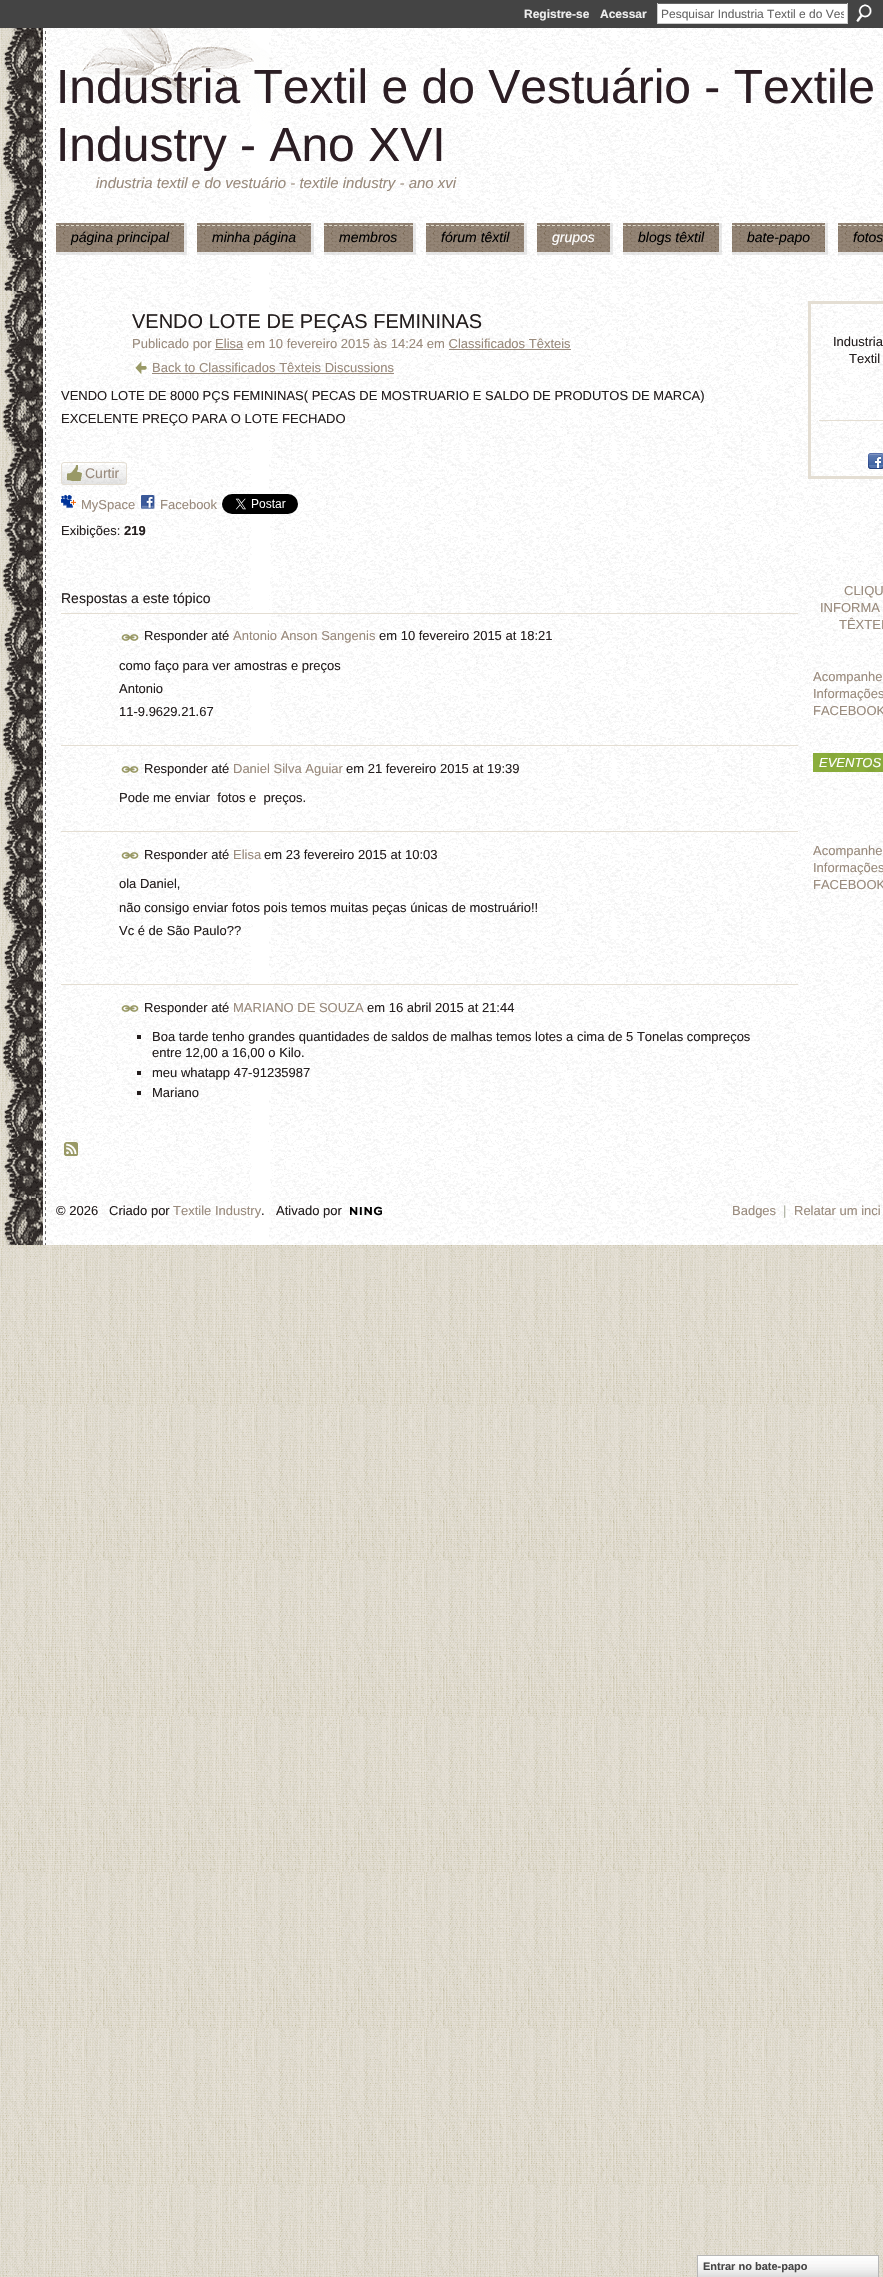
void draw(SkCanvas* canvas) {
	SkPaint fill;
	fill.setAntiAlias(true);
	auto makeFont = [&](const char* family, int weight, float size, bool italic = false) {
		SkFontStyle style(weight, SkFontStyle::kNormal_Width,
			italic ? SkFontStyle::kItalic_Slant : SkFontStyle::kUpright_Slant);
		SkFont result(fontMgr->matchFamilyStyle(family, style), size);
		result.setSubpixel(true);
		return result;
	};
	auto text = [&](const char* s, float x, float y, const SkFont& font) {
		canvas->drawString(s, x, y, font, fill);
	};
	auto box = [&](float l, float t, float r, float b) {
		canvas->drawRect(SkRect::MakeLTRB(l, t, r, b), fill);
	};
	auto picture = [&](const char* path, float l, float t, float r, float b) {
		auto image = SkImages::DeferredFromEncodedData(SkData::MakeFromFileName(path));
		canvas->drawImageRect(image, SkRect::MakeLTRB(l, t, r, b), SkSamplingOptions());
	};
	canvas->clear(0xFFFFFFFF);
	picture("image0.png", 0, 28, 883, 2277);
	fill.setColor(0xFF444444);
	box(0, 0, 883, 28);
	fill.setColor(0xFFFFFFFF);
	box(658, 4, 847, 23);
	fill.setColor(0xFF666666);
	box(657, 3, 848, 4);
	fill.setColor(0xFFCCCCCC);
	box(847, 3, 848, 24);
	box(657, 23, 848, 24);
	box(657, 3, 658, 24);
	picture("image1.png", 856, 4, 872, 22);
	picture("image2.png", 2, 28, 883, 258);
	picture("image3.png", 47, 28, 273, 132);
	picture("image4.png", 56, 223, 187, 255);
	picture("image5.png", 56, 223, 184, 252);
	fill.setStyle(SkPaint::kStroke_Style);
	fill.setStrokeWidth(1);
	fill.setColor(0xFFDDD8C9);
	fill.setPathEffect(SkDashPathEffect::Make({{3, 2}}, 0));
	canvas->drawPath(SkPathBuilder().moveTo(56, 225.5f).lineTo(184, 225.5f).detach(), fill);
	fill.setPathEffect(nullptr);
	picture("image6.png", 197, 223, 314, 255);
	picture("image7.png", 197, 223, 311, 252);
	fill.setPathEffect(SkDashPathEffect::Make({{3, 2.05f}}, 0));
	canvas->drawPath(SkPathBuilder().moveTo(197, 225.5f).lineTo(311, 225.5f).detach(), fill);
	fill.setPathEffect(nullptr);
	picture("image8.png", 324, 223, 416, 255);
	picture("image9.png", 324, 223, 413, 252);
	fill.setPathEffect(SkDashPathEffect::Make({{3, 2.06f}}, 0));
	canvas->drawPath(SkPathBuilder().moveTo(324, 225.5f).lineTo(413, 225.5f).detach(), fill);
	fill.setPathEffect(nullptr);
	picture("image10.png", 426, 223, 527, 255);
	picture("image11.png", 426, 223, 524, 252);
	fill.setPathEffect(SkDashPathEffect::Make({{3, 2}}, 0));
	canvas->drawPath(SkPathBuilder().moveTo(426, 225.5f).lineTo(524, 225.5f).detach(), fill);
	fill.setPathEffect(nullptr);
	picture("image12.png", 537, 223, 613, 255);
	picture("image13.png", 537, 223, 610, 252);
	fill.setPathEffect(SkDashPathEffect::Make({{3, 2}}, 0));
	canvas->drawPath(SkPathBuilder().moveTo(537, 225.5f).lineTo(610, 225.5f).detach(), fill);
	fill.setPathEffect(nullptr);
	picture("image14.png", 623, 223, 722, 255);
	picture("image15.png", 623, 223, 719, 252);
	fill.setPathEffect(SkDashPathEffect::Make({{3, 1.89f}}, 0));
	canvas->drawPath(SkPathBuilder().moveTo(623, 225.5f).lineTo(719, 225.5f).detach(), fill);
	fill.setPathEffect(nullptr);
	picture("image16.png", 732, 223, 828, 255);
	picture("image17.png", 732, 223, 825, 252);
	fill.setPathEffect(SkDashPathEffect::Make({{3, 2}}, 0));
	canvas->drawPath(SkPathBuilder().moveTo(732, 225.5f).lineTo(825, 225.5f).detach(), fill);
	fill.setPathEffect(nullptr);
	fill.setStyle(SkPaint::kFill_Style);
	fill.setColor(0x4DB1B1B1);
	box(838, 252, 883, 255);
	picture("image18.png", 838, 223, 883, 252);
	fill.setStyle(SkPaint::kStroke_Style);
	fill.setColor(0xFFDDD8C9);
	fill.setPathEffect(SkDashPathEffect::Make({{3, 2.18f}}, 0));
	canvas->drawPath(SkPathBuilder().moveTo(838, 225.5f).lineTo(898, 225.5f).detach(), fill);
	fill.setPathEffect(nullptr);
	picture("image19.png", 4, 258, 883, 291);
	picture("image20.png", 2, 291, 883, 1198);
	fill.setStyle(SkPaint::kFill_Style);
	fill.setColor(0xFF998A7C);
	box(215, 349, 243, 350);
	box(449, 349, 571, 350);
	picture("image21.png", 135, 361, 147, 375);
	box(152, 373, 394, 374);
	picture("image22.png", 61, 465, 127, 485);
	fill.setStyle(SkPaint::kStroke_Style);
	fill.setColor(0xFFE4DED3);
	canvas->drawRoundRect(SkRect::MakeLTRB(61.5f, 462.5f, 126.5f, 484.5f), 2.5f, 2.5f, fill);
	picture("image23.png", 67, 465, 82, 481);
	picture("image24.png", 61, 495, 77, 508);
	picture("image25.png", 141, 495, 155, 509);
	picture("image26.png", 222, 494, 298, 514);
	fill.setStyle(SkPaint::kFill_Style);
	box(61, 613, 798, 614);
	picture("image27.png", 121, 634, 139, 641);
	box(61, 745, 798, 746);
	picture("image28.png", 121, 766, 139, 773);
	box(61, 831, 798, 832);
	picture("image29.png", 121, 852, 139, 859);
	box(61, 984, 798, 985);
	picture("image30.png", 121, 1005, 139, 1012);
	fill.setColor(0xFF241E1E);
	box(137, 1035, 141, 1039);
	box(137, 1071, 141, 1075);
	box(137, 1091, 141, 1095);
	picture("image31.png", 64, 1142, 78, 1156);
	fill.setStyle(SkPaint::kStroke_Style);
	fill.setStrokeWidth(3);
	fill.setColor(0xFFE4DED3);
	canvas->drawRect(SkRect::MakeLTRB(809.5f, 302.5f, 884.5f, 477.5f), fill);
	fill.setStyle(SkPaint::kFill_Style);
	box(819, 420, 883, 421);
	picture("image32.png", 868, 453, 883, 469);
	fill.setColor(0xFF8BAE3C);
	box(813, 753, 883, 772);
	picture("image33.png", 813, 753, 883, 772);
	picture("image34.png", 4, 1198, 883, 1245);
	picture("image35.png", 350, 1206, 382, 1216);
	picture("image36.png", 698, 2256, 878, 2277);
	fill.setStyle(SkPaint::kStroke_Style);
	fill.setStrokeWidth(1);
	fill.setColor(0xFFB7B7B7);
	canvas->drawRect(SkRect::MakeLTRB(697.5f, 2255.5f, 878.5f, 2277.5f), fill);
	auto font1 = makeFont("Liberation Sans", 700, 12);
	fill.setStyle(SkPaint::kFill_Style);
	fill.setColor(0xFFEEEEEE);
	text("Registre-se", 524, 18, font1);
	text("Acessar", 600, 18, font1);
	canvas->save();
	canvas->clipRect(SkRect::MakeLTRB(661, 7, 844, 21));
	auto font2 = makeFont("Liberation Sans", 400, 12);
	fill.setColor(0xFF666666);
	text("Pesquisar Industria Textil e do Ves", 661, 18, font2);
	canvas->restore();
	auto font3 = makeFont("Liberation Sans", 400, 48);
	fill.setColor(0xFF2C1E24);
	text("Industria Textil e do Vestuário - Textile", 56, 103, font3);
	text("Industry - Ano XVI", 56, 161, font3);
	auto font4 = makeFont("Liberation Sans", 400, 15, true);
	fill.setColor(0xFF998A7C);
	text("industria textil e do vestuário - textile industry - ano xvi", 96, 188, font4);
	auto font5 = makeFont("Liberation Sans", 400, 14, true);
	fill.setColor(0xFF000000);
	text("página principal", 71, 242, font5);
	text("minha página", 212, 242, font5);
	text("membros", 339, 242, font5);
	text("fórum têxtil", 441, 242, font5);
	fill.setColor(0xFFFFFFFF);
	text("grupos", 552, 242, font5);
	fill.setColor(0xFF000000);
	text("blogs têxtil", 638, 242, font5);
	text("bate-papo", 747, 242, font5);
	text("fotos", 853, 242, font5);
	auto font6 = makeFont("Liberation Sans", 400, 20);
	fill.setColor(0xFF241E1E);
	text("VENDO LOTE DE PEÇAS FEMININAS", 132, 328, font6);
	auto font7 = makeFont("Liberation Sans", 400, 13);
	fill.setColor(0xFF998A7C);
	text("Publicado por Elisa em 10 fevereiro 2015 às 14:24 em Classificados Têxteis", 132, 348, font7);
	text("Back to Classificados Têxteis Discussions", 152, 372, font7);
	fill.setColor(0xFF241E1E);
	text("VENDO LOTE DE 8000 PÇS FEMININAS( PECAS DE MOSTRUARIO E SALDO DE PRODUTOS DE MARCA)", 61, 400, font7);
	text("EXCELENTE PREÇO PARA O LOTE FECHADO", 61, 423, font7);
	auto font8 = makeFont("Liberation Sans", 400, 14);
	fill.setColor(0xFF998A7C);
	text("Curtir", 85, 478, font8);
	text("MySpace", 81, 509, font7);
	text("Facebook", 160, 509, font7);
	fill.setColor(0xFF241E1E);
	text("Exibições:", 61, 535, font7);
	auto font9 = makeFont("Liberation Sans", 700, 13);
	text("219", 124, 535, font9);
	text("Respostas a este tópico", 61, 603, font8);
	text("Responder até", 144, 640, font7);
	fill.setColor(0xFF998A7C);
	text("Antonio Anson Sangenis", 233, 640, font7);
	fill.setColor(0xFF241E1E);
	text("em 10 fevereiro 2015 at 18:21", 379, 640, font7);
	text("como faço para ver amostras e preços", 119, 670, font7);
	text("Antonio", 119, 693, font7);
	text("11-9.9629.21.67", 119, 716, font7);
	text("Responder até", 144, 773, font7);
	fill.setColor(0xFF998A7C);
	text("Daniel Silva Aguiar", 233, 773, font7);
	fill.setColor(0xFF241E1E);
	text("em 21 fevereiro 2015 at 19:39", 346, 773, font7);
	text("Pode me enviar  fotos e  preços.", 119, 802, font7);
	text("Responder até", 144, 859, font7);
	fill.setColor(0xFF998A7C);
	text("Elisa", 233, 859, font7);
	fill.setColor(0xFF241E1E);
	text("em 23 fevereiro 2015 at 10:03", 264, 859, font7);
	text("ola Daniel,", 119, 888, font7);
	text("não consigo enviar fotos pois temos muitas peças únicas de mostruário!!", 119, 912, font7);
	text("Vc é de São Paulo?\077", 119, 935, font7);
	text("Responder até", 144, 1012, font7);
	fill.setColor(0xFF998A7C);
	text("MARIANO DE SOUZA", 233, 1012, font7);
	fill.setColor(0xFF241E1E);
	text("em 16 abril 2015 at 21:44", 367, 1012, font7);
	text("Boa tarde tenho grandes quantidades de saldos de malhas temos lotes a cima de 5 Tonelas compreços", 152, 1041, font7);
	text("entre 12,00 a 16,00 o Kilo.", 152, 1057, font7);
	text("meu whatapp 47-91235987", 152, 1077, font7);
	text("Mariano", 152, 1097, font7);
	text("Industria", 833, 346, font7);
	text("Textil", 849, 363, font7);
	fill.setColor(0xFF998A7C);
	text("CLIQU", 844, 595, font7);
	text("INFORMA", 820, 612, font7);
	text("TÊXTEI", 839, 629, font7);
	text("Acompanhe", 813, 681, font7);
	text("Informações", 813, 698, font7);
	text("FACEBOOK", 813, 715, font7);
	auto font10 = makeFont("Liberation Sans", 400, 13, true);
	fill.setColor(0xFFFFFFFF);
	text("EVENTOS", 819, 767, font10);
	fill.setColor(0xFF998A7C);
	text("Acompanhe", 813, 855, font7);
	text("Informações", 813, 872, font7);
	text("FACEBOOK", 813, 889, font7);
	fill.setColor(0xFF241E1E);
	text("© 2026", 56, 1215, font7);
	text("Criado por", 109, 1215, font7);
	fill.setColor(0xFF998A7C);
	text("Textile Industry", 173, 1215, font7);
	fill.setColor(0xFF241E1E);
	text(".", 261, 1215, font7);
	text("Ativado por", 276, 1215, font7);
	fill.setColor(0xFF998A7C);
	text("Badges", 732, 1215, font7);
	fill.setColor(0xFFAAAF9F);
	text("|", 783, 1215, font7);
	fill.setColor(0xFF998A7C);
	text("Relatar um inci", 794, 1215, font7);
	auto font11 = makeFont("Liberation Sans", 700, 11);
	fill.setColor(0xFF454545);
	text("Entrar no bate-papo", 703, 2270, font11);
}
